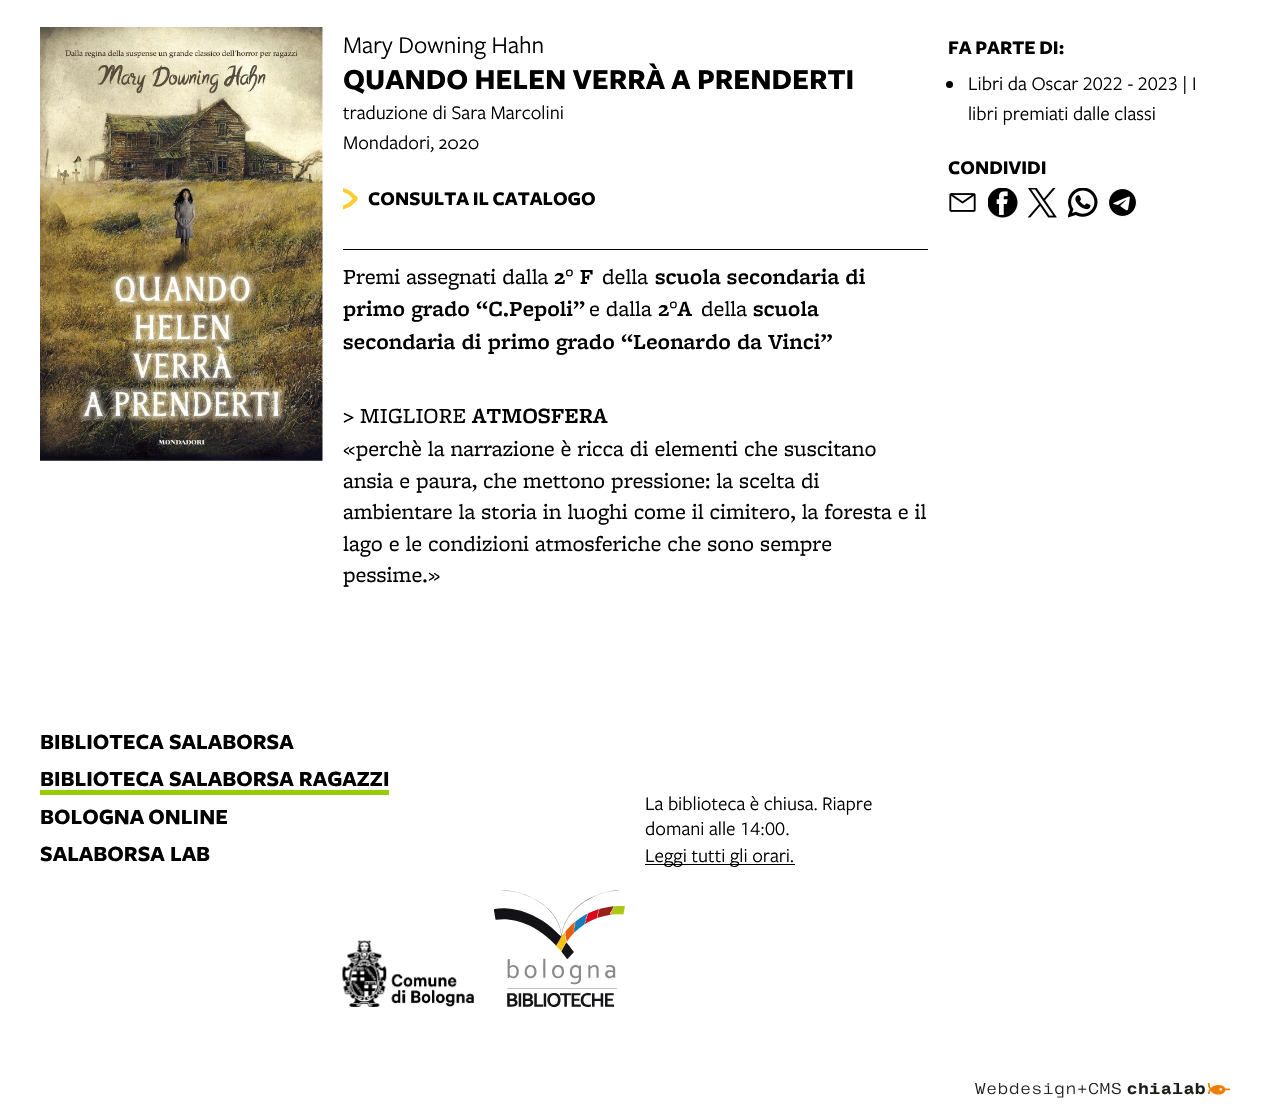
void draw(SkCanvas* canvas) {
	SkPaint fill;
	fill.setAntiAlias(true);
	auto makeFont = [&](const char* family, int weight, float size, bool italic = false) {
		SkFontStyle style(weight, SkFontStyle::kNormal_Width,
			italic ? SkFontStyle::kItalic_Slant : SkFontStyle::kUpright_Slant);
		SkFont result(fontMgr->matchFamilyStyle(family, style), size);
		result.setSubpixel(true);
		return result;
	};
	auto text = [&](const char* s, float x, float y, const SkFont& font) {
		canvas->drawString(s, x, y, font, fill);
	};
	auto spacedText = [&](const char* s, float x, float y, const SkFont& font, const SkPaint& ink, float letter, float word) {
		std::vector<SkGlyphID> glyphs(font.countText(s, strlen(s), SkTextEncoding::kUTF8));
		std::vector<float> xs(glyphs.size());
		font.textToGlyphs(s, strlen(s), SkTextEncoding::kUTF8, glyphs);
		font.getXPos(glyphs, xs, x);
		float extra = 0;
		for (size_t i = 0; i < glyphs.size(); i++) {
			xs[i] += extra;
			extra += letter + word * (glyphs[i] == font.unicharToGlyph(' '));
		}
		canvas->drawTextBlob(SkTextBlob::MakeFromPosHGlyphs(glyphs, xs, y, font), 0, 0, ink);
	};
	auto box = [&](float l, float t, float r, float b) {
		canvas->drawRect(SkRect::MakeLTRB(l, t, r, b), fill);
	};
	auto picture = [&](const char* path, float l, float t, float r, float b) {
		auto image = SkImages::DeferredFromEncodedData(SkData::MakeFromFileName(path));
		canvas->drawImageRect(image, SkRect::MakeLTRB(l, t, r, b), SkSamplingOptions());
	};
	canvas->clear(0xFFFFFFFF);
	picture("image0.png", 40, 27, 323, 461);
	picture("image1.png", 343, 188, 358, 210);
	fill.setColor(0xFF000000);
	box(343, 249, 928, 250);
	canvas->drawCircle(949.5f, 84.5f, 3.5f, fill);
	picture("image2.png", 949, 193, 976, 212);
	picture("image3.png", 988, 188, 1018, 218);
	picture("image4.png", 1028, 188, 1057, 218);
	picture("image5.png", 1068, 188, 1098, 218);
	picture("image6.png", 1108, 188, 1137, 217);
	fill.setColor(0xFF99CC00);
	box(40, 790, 389, 795);
	fill.setColor(0xFF000000);
	box(645, 864, 795, 865);
	picture("image7.png", 342, 940, 474, 1007);
	picture("image8.png", 494, 890, 625, 1007);
	picture("image9.png", 975, 1083, 1230, 1098);
	auto font1 = makeFont("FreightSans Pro", 400, 25);
	text("Mary Downing Hahn", 343, 53, font1);
	auto font2 = makeFont("FreightSans Pro", 700, 30);
	spacedText("QUANDO HELEN VERRÀ A PRENDERTI", 343, 89, font2, fill, 0, -0.5f);
	auto font3 = makeFont("FreightSans Pro", 400, 20);
	text("traduzione di Sara Marcolini", 343, 119, font3);
	text("Mondadori, 2020", 343, 149, font3);
	auto font4 = makeFont("FreightSans Pro", 700, 20);
	spacedText("CONSULTA IL CATALOGO", 368, 205, font4, fill, 0, -1);
	auto font5 = makeFont("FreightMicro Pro", 400, 22.5f);
	text("Premi assegnati dalla", 343, 284, font5);
	auto font6 = makeFont("FreightMicro Pro", 600, 22.5f);
	text("2° F", 554, 284, font6);
	text("della", 602, 284, font5);
	text("scuola secondaria di", 655, 284, font6);
	text("primo grado “C.Pepoli”", 343, 316, font6);
	text("e dalla", 589, 316, font5);
	text("2°A", 658, 316, font6);
	text("della", 701, 316, font5);
	text("scuola", 753, 316, font6);
	text("secondaria di primo grado “Leonardo da Vinci”", 343, 349, font6);
	text("> MIGLIORE", 343, 423, font5);
	text("ATMOSFERA", 472, 423, font6);
	text("«perchè la narrazione è ricca di elementi che suscitano", 343, 456, font5);
	text("ansia e paura, che mettono pressione: la scelta di", 343, 488, font5);
	text("ambientare la storia in luoghi come il cimitero, la foresta e il", 343, 519, font5);
	text("lago e le condizioni atmosferiche che sono sempre", 343, 551, font5);
	text("pessime.»", 343, 582, font5);
	spacedText("FA PARTE DI:", 948, 54, font4, fill, 0, -1);
	auto font7 = makeFont("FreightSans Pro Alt", 400, 20);
	text("Libri da Oscar 2022 - 2023 | I", 968, 90, font7);
	text("libri premiati dalle classi", 968, 120, font3);
	text("CONDIVIDI", 948, 174, font4);
	auto font8 = makeFont("FreightSans Pro", 700, 22.5f);
	text("BIBLIOTECA SALABORSA", 40, 749, font8);
	text("BIBLIOTECA SALABORSA RAGAZZI", 40, 786, font8);
	spacedText("BOLOGNA ONLINE", 40, 824, font8, fill, 0, -1);
	text("SALABORSA LAB", 40, 861, font8);
	text("La biblioteca è chiusa. Riapre", 645, 810, font3);
	text("domani alle 14:00.", 645, 835, font7);
	text("Leggi tutti gli orari.", 645, 862, font3);
}
